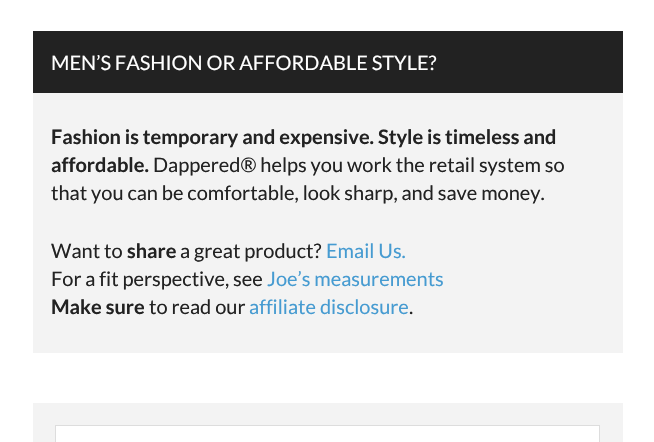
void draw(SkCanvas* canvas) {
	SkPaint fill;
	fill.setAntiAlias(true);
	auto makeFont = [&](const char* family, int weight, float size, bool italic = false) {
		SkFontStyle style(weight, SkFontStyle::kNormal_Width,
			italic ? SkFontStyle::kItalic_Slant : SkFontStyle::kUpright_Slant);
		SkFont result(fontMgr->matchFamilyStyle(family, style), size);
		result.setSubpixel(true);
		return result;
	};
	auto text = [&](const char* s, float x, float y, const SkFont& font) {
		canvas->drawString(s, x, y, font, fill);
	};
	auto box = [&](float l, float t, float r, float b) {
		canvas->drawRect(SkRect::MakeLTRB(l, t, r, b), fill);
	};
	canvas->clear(0xFFFFFFFF);
	fill.setColor(0xFFF3F3F3);
	box(33, 93, 623, 353);
	fill.setColor(0xFF222222);
	box(33, 31, 623, 93);
	fill.setStyle(SkPaint::kStroke_Style);
	fill.setStrokeWidth(23);
	fill.setColor(0xFFF3F3F3);
	canvas->drawRect(SkRect::MakeLTRB(44.5f, 414.5f, 611.5f, 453.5f), fill);
	fill.setStrokeWidth(1);
	fill.setColor(0xFFDDDDDD);
	canvas->drawRect(SkRect::MakeLTRB(55.5f, 425.5f, 599.5f, 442.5f), fill);
	auto font1 = makeFont("Lato", 400, 20);
	fill.setStyle(SkPaint::kFill_Style);
	fill.setColor(0xFFFFFFFF);
	text("MEN’S FASHION OR AFFORDABLE STYLE?", 51, 70, font1);
	auto font2 = makeFont("Lato", 700, 20);
	fill.setColor(0xFF222222);
	text("Fashion is temporary and expensive. Style is timeless and", 51, 144, font2);
	text("affordable.", 51, 172, font2);
	text("Dappered® helps you work the retail system so", 153, 172, font1);
	text("that you can be comfortable, look sharp, and save money.", 51, 200, font1);
	text("Want to", 51, 258, font1);
	text("share", 127, 258, font2);
	text("a great product?", 180, 258, font1);
	fill.setColor(0xFF469BD1);
	text("Email Us.", 326, 258, font1);
	fill.setColor(0xFF222222);
	text("For a fit perspective, see", 51, 286, font1);
	fill.setColor(0xFF469BD1);
	text("Joe’s measurements", 267, 286, font1);
	fill.setColor(0xFF222222);
	text("Make sure", 51, 314, font2);
	text("to read our", 149, 314, font1);
	fill.setColor(0xFF469BD1);
	text("affiliate disclosure", 249, 314, font1);
	fill.setColor(0xFF222222);
	text(".", 409, 314, font1);
}
